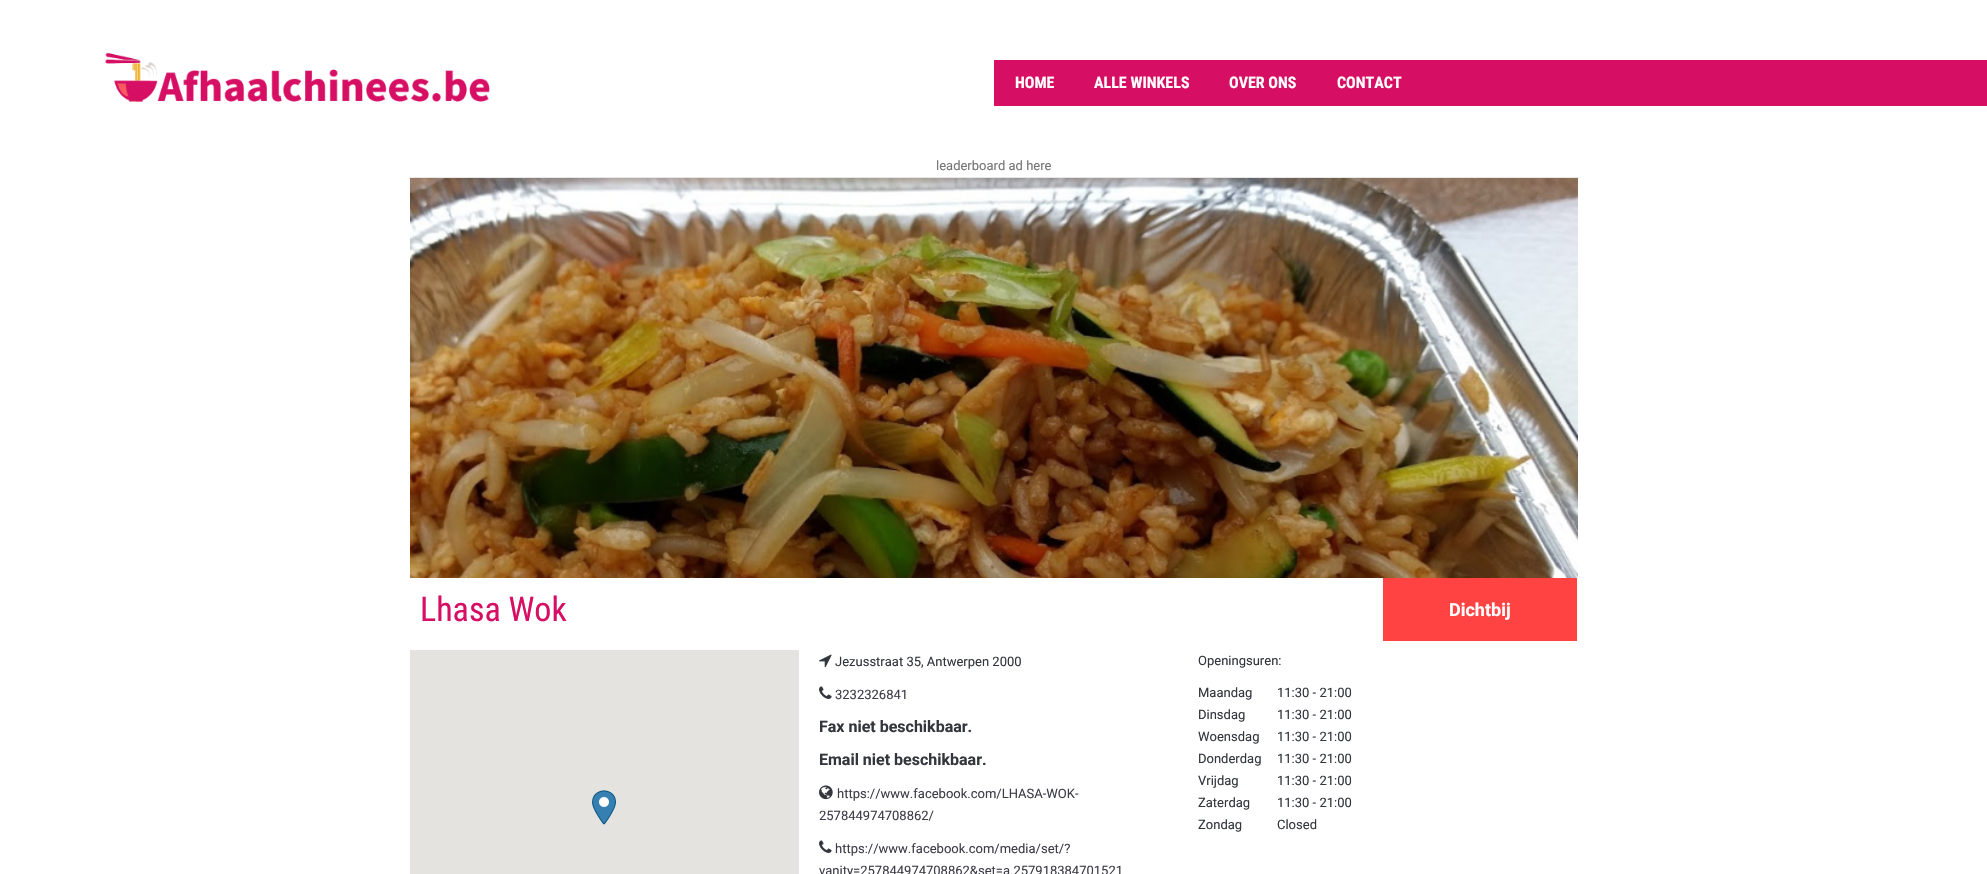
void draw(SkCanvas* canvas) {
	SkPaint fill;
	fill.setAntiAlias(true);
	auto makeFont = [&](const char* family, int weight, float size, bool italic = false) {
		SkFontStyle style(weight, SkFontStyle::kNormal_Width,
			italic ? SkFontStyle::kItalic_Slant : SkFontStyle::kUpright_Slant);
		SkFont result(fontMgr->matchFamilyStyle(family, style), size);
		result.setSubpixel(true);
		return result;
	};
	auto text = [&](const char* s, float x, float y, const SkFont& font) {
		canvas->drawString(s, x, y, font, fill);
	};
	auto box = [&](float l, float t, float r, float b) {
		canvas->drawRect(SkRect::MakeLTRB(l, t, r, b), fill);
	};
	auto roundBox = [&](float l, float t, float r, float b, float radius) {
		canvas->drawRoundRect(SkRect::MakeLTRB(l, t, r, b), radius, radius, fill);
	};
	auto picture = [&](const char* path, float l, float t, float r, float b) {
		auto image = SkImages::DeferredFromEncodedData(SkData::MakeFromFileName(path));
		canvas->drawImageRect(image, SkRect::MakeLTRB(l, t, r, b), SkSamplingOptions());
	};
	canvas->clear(0xFFFFFFFF);
	picture("image0.png", 105, 52, 490, 102);
	fill.setColor(0xFFD70F64);
	box(994, 60, 1987, 106);
	fill.setColor(0xFFE7E7E7);
	roundBox(409, 177, 1579, 179, 1);
	picture("image1.png", 410, 178, 1578, 578);
	fill.setColor(0xFFFF4343);
	box(1383, 578, 1577, 641);
	fill.setColor(0xFFE5E3DF);
	box(410, 650, 799, 874);
	picture("image2.png", 592, 790, 616, 825);
	picture("image3.png", 819, 654, 832, 668);
	picture("image4.png", 819, 686, 832, 699);
	picture("image5.png", 819, 785, 833, 800);
	picture("image4.png", 819, 840, 832, 853);
	auto font1 = makeFont("Roboto Condensed", 700, 16);
	fill.setColor(0xFFFFFFFF);
	text("HOME", 1015, 88, font1);
	text("ALLE WINKELS", 1094, 88, font1);
	text("OVER ONS", 1229, 88, font1);
	text("CONTACT", 1337, 88, font1);
	auto font2 = makeFont("Roboto", 400, 13);
	fill.setColor(0xFF757575);
	text("leaderboard ad here", 936, 170, font2);
	auto font3 = makeFont("Roboto Condensed", 400, 34);
	fill.setColor(0xFFD70F64);
	text("Lhasa Wok", 420, 621, font3);
	auto font4 = makeFont("Roboto", 700, 18);
	fill.setColor(0xFFFFFFFF);
	text("Dichtbij", 1449, 616, font4);
	fill.setColor(0xFF33373D);
	text("Jezusstraat 35, Antwerpen 2000", 835, 666, font2);
	fill.setColor(0xFF3E3E4A);
	text("3232326841", 835, 699, font2);
	auto font5 = makeFont("Roboto", 700, 16);
	fill.setColor(0xFF33373D);
	text("Fax niet beschikbaar.", 819, 732, font5);
	text("Email niet beschikbaar.", 819, 765, font5);
	fill.setColor(0xFF3E3E4A);
	text("https://www.facebook.com/LHASA-WOK-", 837, 798, font2);
	text("257844974708862/", 819, 820, font2);
	text("https://www.facebook.com/media/set/?", 835, 853, font2);
	text("vanity=257844974708862&set=a.257918384701521", 819, 875, font2);
	fill.setColor(0xFF33373D);
	text("Openingsuren:", 1198, 665, font2);
	text("Maandag", 1198, 697, font2);
	text("11:30 - 21:00", 1277, 697, font2);
	text("Dinsdag", 1198, 719, font2);
	text("11:30 - 21:00", 1277, 719, font2);
	text("Woensdag", 1198, 741, font2);
	text("11:30 - 21:00", 1277, 741, font2);
	text("Donderdag", 1198, 763, font2);
	text("11:30 - 21:00", 1277, 763, font2);
	text("Vrijdag", 1198, 785, font2);
	text("11:30 - 21:00", 1277, 785, font2);
	text("Zaterdag", 1198, 807, font2);
	text("11:30 - 21:00", 1277, 807, font2);
	text("Zondag", 1198, 829, font2);
	text("Closed", 1277, 829, font2);
}
